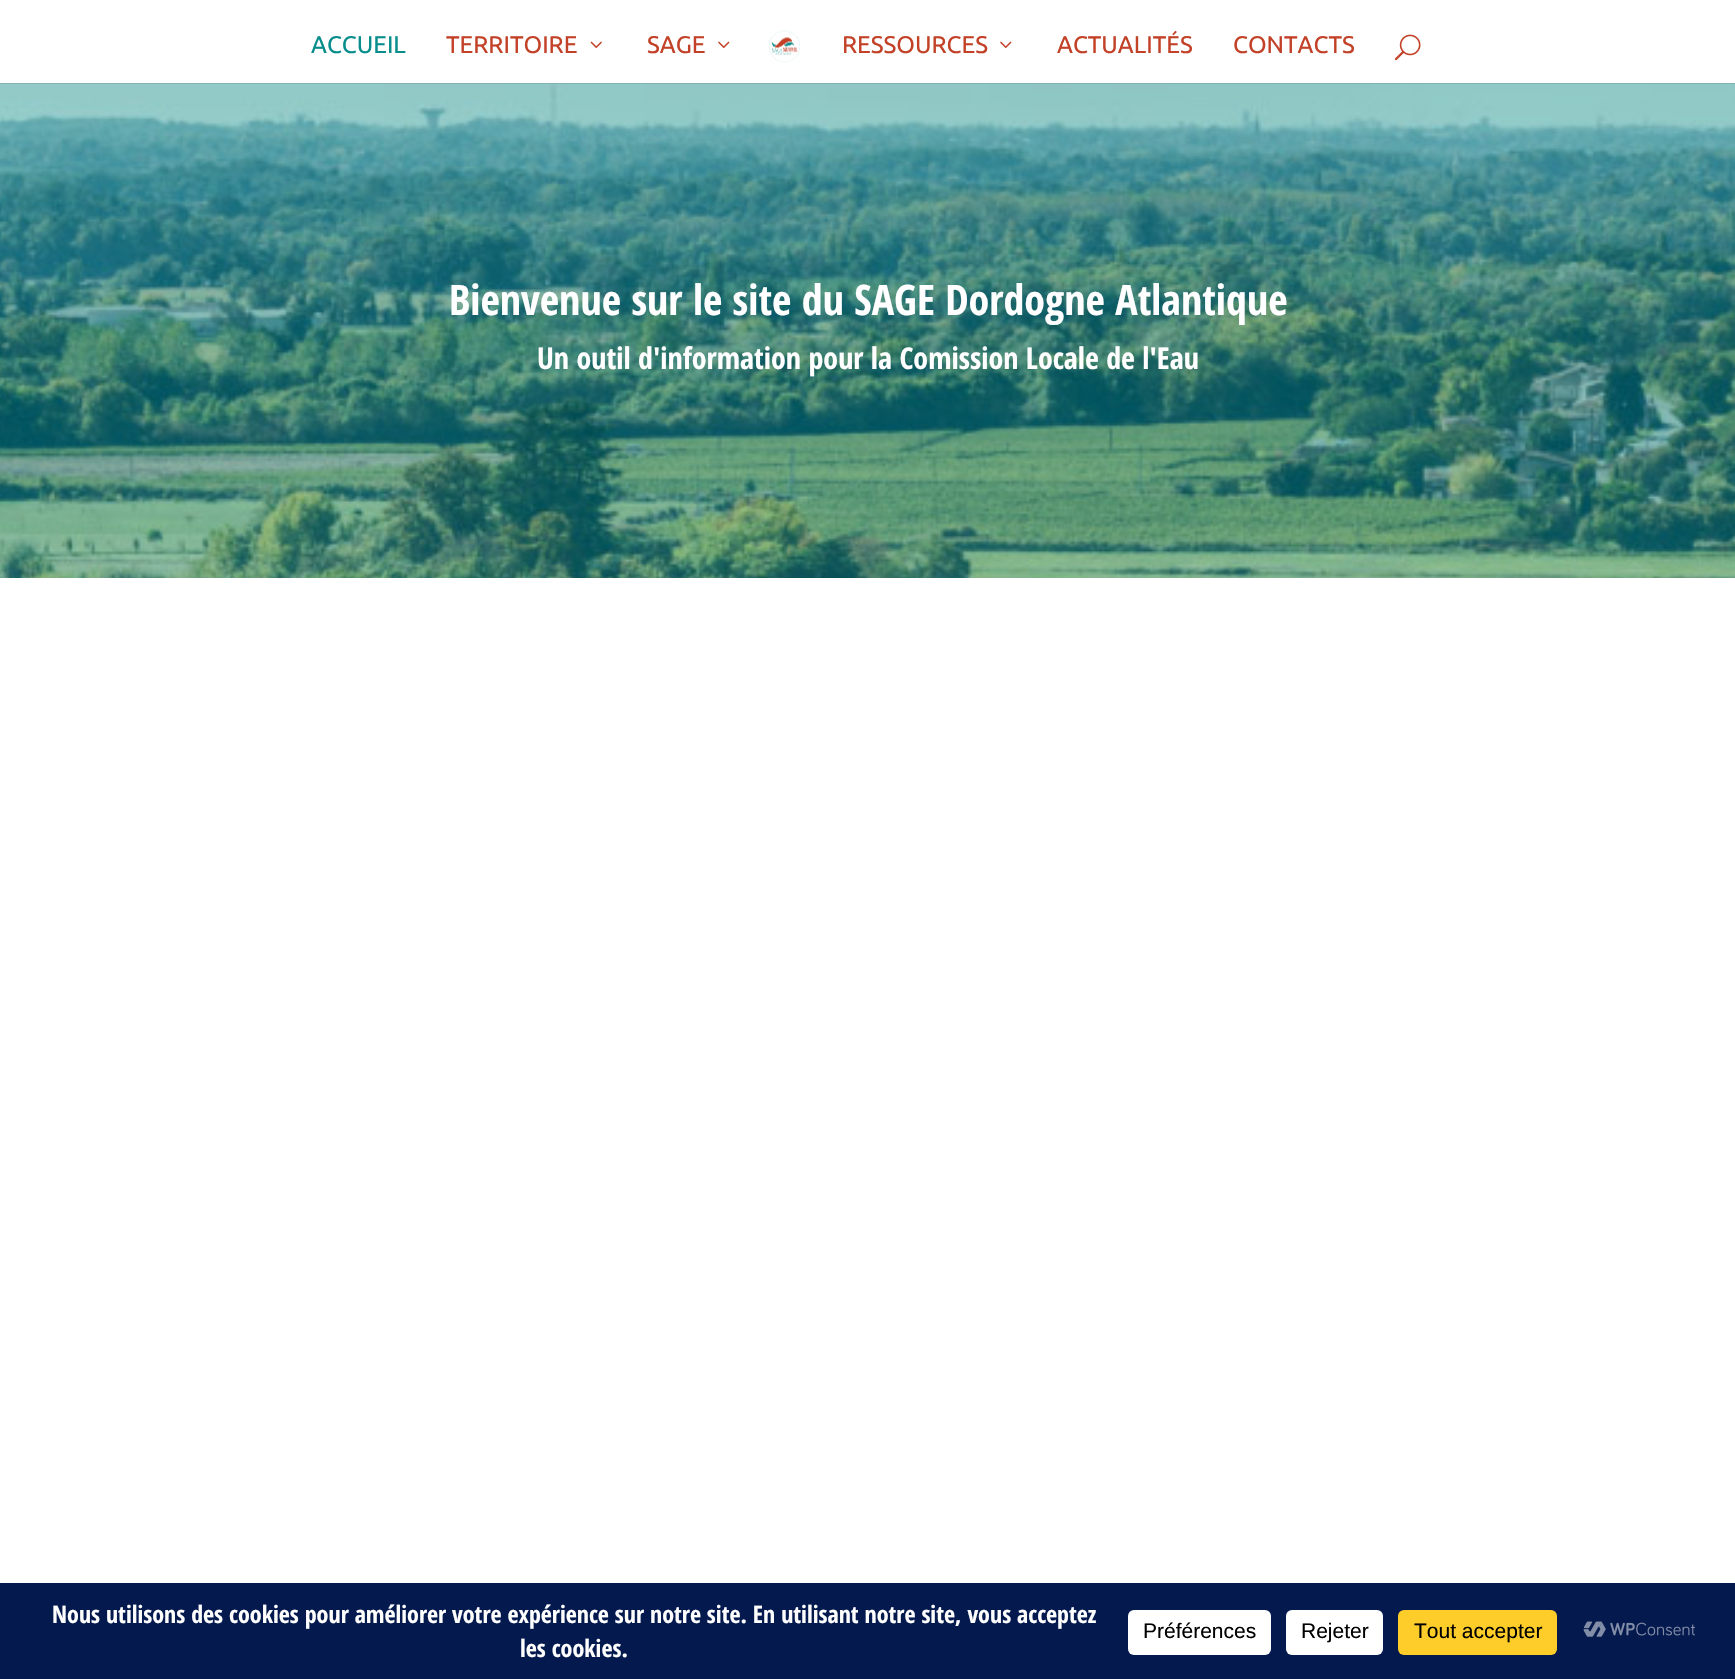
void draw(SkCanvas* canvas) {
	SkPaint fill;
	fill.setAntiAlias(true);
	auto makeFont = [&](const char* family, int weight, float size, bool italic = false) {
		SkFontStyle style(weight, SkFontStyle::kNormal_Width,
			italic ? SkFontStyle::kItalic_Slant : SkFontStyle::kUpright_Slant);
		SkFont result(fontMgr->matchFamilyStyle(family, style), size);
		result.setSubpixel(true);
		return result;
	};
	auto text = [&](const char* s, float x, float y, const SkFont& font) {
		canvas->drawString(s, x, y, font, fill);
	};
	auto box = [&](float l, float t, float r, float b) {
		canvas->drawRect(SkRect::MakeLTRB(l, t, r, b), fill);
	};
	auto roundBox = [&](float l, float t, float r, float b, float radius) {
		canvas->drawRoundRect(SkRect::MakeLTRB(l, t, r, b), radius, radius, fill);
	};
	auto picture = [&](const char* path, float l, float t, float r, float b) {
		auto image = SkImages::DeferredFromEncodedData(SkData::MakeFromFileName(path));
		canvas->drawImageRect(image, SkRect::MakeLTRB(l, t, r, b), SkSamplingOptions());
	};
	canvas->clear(0xFFFFFFFF);
	picture("image4.png", 0, 83, 1735, 578);
	fill.setColor(0x1A000000);
	canvas->drawPath(SkPathBuilder().moveTo(0, 82).lineTo(0, 84).lineTo(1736, 84).lineTo(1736, 2).lineTo(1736, 82).close().detach(), fill);
	fill.setColor(0xFFFFFFFF);
	box(0, 82, 1735, 83);
	picture("image0.png", 590, 41, 602, 48);
	picture("image1.png", 718, 41, 730, 48);
	picture("image2.png", 768, 30, 801, 63);
	picture("image1.png", 1000, 41, 1012, 48);
	picture("image3.png", 1394, 34, 1421, 61);
	fill.setColor(0xFF04194E);
	box(0, 1583, 1735, 1679);
	fill.setColor(0xFFFFFFFF);
	roundBox(1128, 1610, 1271, 1655, 6);
	roundBox(1286, 1610, 1383, 1655, 6);
	fill.setColor(0xFFFFCD2A);
	roundBox(1398, 1610, 1557, 1655, 6);
	picture("image5.png", 1583, 1621, 1695, 1637);
	auto font1 = makeFont("Ubuntu", 400, 24);
	fill.setColor(0xFF068D8C);
	text("ACCUEIL", 311, 53, font1);
	fill.setColor(0xFFC24127);
	text("TERRITOIRE", 446, 53, font1);
	text("SAGE", 647, 53, font1);
	text("RESSOURCES", 842, 53, font1);
	text("ACTUALITÉS", 1057, 53, font1);
	text("CONTACTS", 1233, 53, font1);
	auto font2 = makeFont("Open Sans Condensed", 700, 42);
	fill.setColor(0xFFFFFFFF);
	text("Bienvenue sur le site du SAGE Dordogne Atlantique", 449, 315, font2);
	auto font3 = makeFont("Open Sans Condensed", 700, 30);
	text("Un outil d'information pour la Comission Locale de l'Eau", 537, 369, font3);
	auto font4 = makeFont("Open Sans Condensed", 700, 24);
	text("Nous utilisons des cookies pour améliorer votre expérience sur notre site. En utilisant notre site, vous acceptez", 52, 1623, font4);
	text("les cookies.", 520, 1657, font4);
	auto font5 = makeFont("Liberation Sans", 400, 21);
	fill.setColor(0xFF000000);
	text("Préférences", 1143, 1638, font5);
	text("Rejeter", 1301, 1638, font5);
	text("Tout accepter", 1414, 1638, font5);
}
